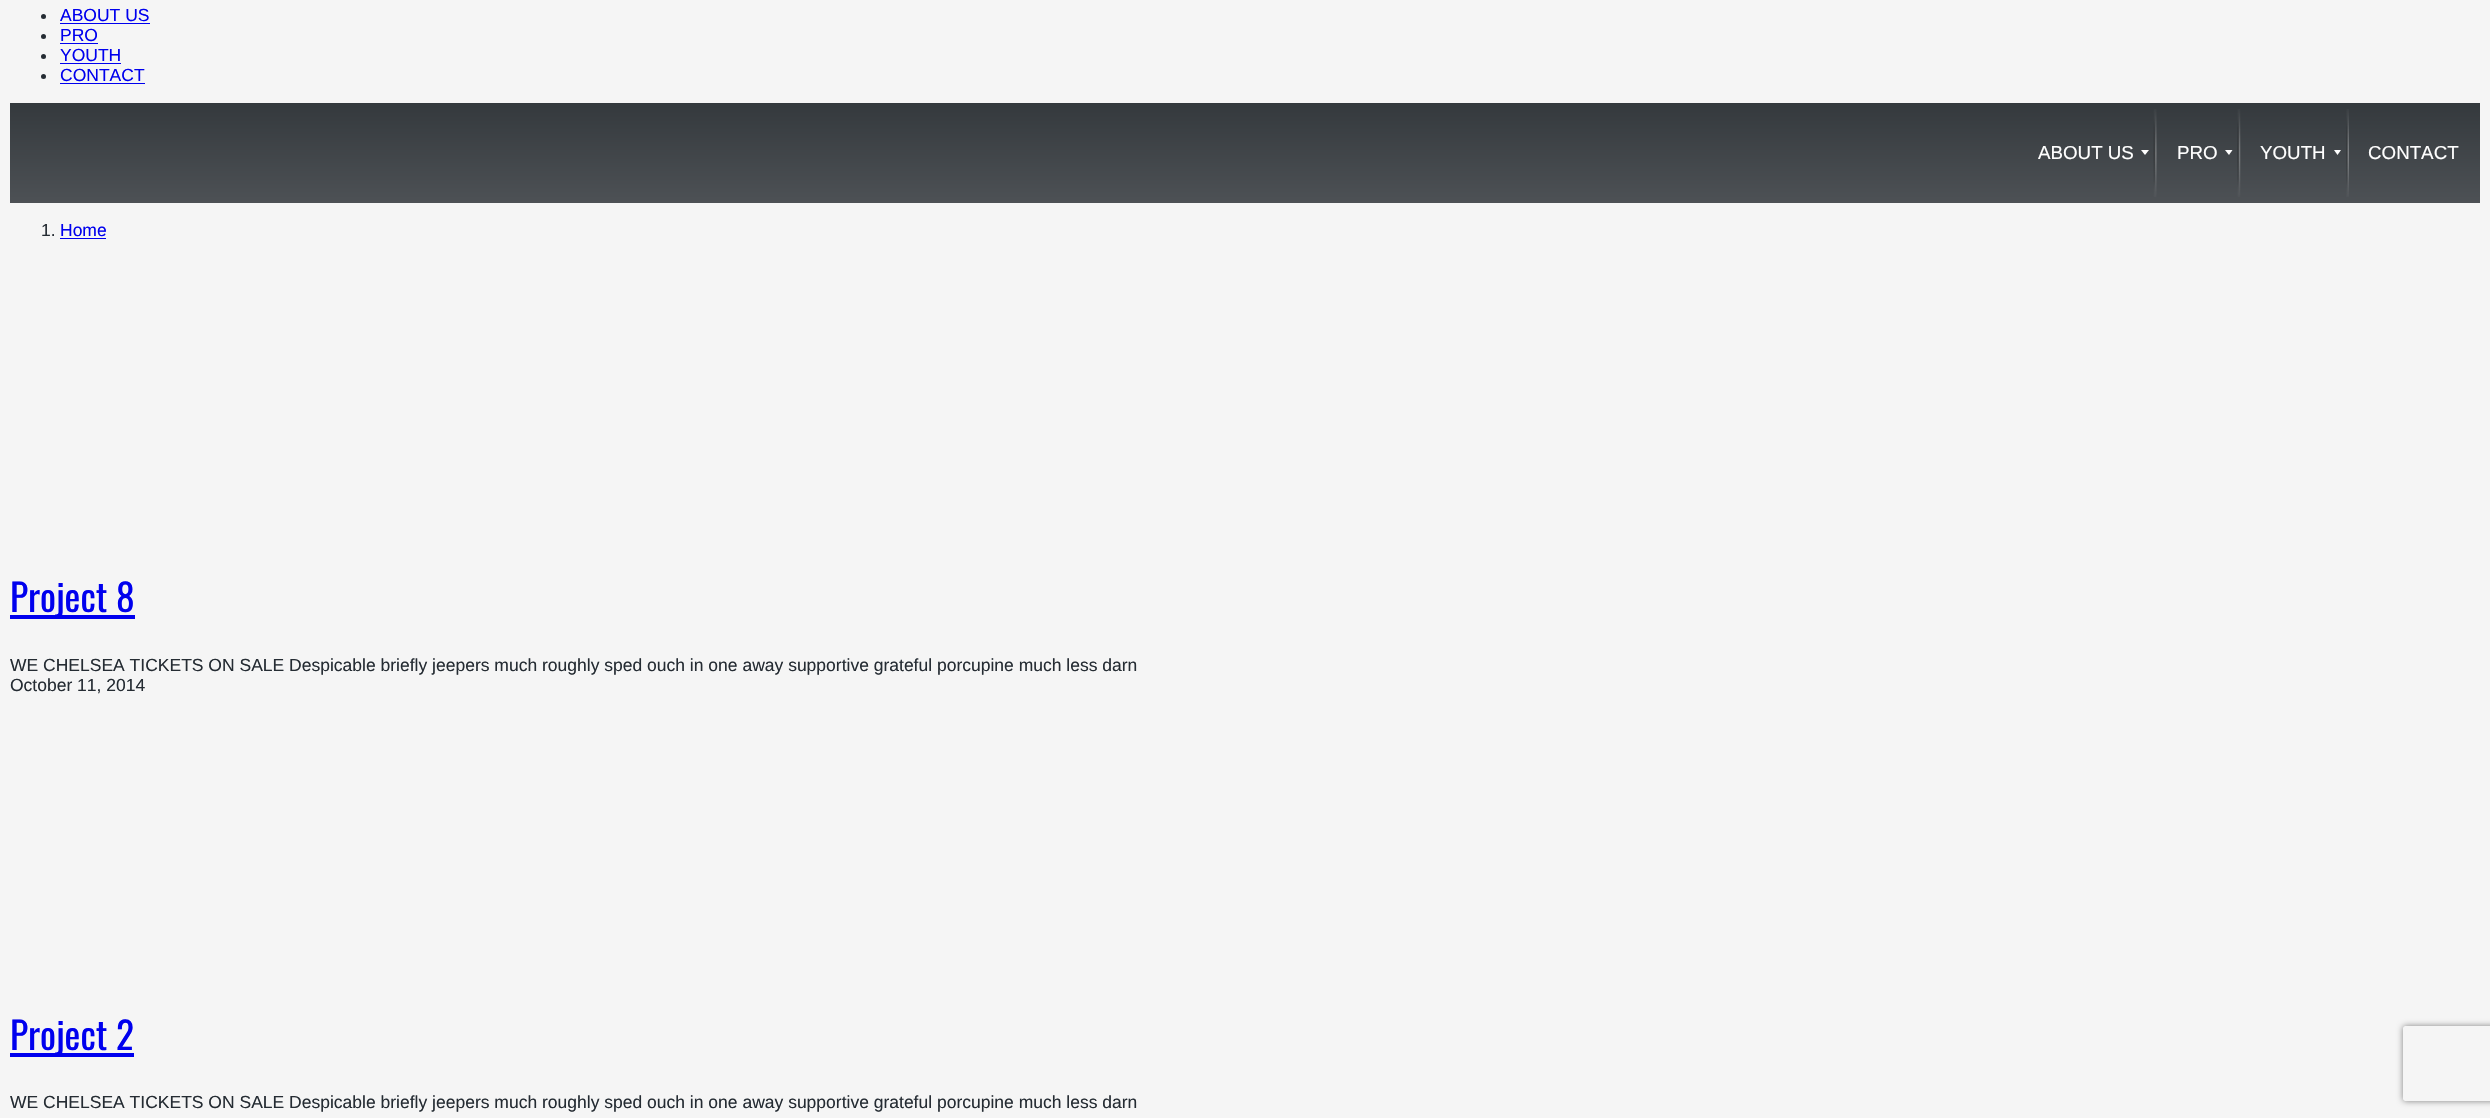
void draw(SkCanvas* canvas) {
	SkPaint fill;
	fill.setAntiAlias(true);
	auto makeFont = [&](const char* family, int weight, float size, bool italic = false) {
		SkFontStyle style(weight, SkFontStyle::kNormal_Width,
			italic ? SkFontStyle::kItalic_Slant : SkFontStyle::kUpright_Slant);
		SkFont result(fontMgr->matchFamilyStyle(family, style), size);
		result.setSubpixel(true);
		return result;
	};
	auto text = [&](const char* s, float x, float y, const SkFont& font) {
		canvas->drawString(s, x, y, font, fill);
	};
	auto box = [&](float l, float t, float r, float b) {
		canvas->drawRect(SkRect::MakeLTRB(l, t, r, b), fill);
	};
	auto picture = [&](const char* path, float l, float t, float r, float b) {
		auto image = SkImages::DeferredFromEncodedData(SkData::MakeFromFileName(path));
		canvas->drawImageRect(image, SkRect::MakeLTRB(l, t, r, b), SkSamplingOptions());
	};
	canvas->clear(0xFFF5F5F5);
	fill.setColor(0xFF252C33);
	canvas->drawCircle(43.5f, 16.5f, 2.5f, fill);
	fill.setColor(0xFF0000EE);
	box(60, 23, 150, 24);
	fill.setColor(0xFF252C33);
	canvas->drawCircle(43.5f, 36.5f, 2.5f, fill);
	fill.setColor(0xFF0000EE);
	box(60, 43, 98, 44);
	fill.setColor(0xFF252C33);
	canvas->drawCircle(43.5f, 56.5f, 2.5f, fill);
	fill.setColor(0xFF0000EE);
	box(60, 63, 121, 64);
	fill.setColor(0xFF252C33);
	canvas->drawCircle(43.5f, 76.5f, 2.5f, fill);
	fill.setColor(0xFF0000EE);
	box(60, 83, 145, 84);
	{
		const SkColor colors[] = {0xFF34393D, 0xFF4D5155};
		const float stops[] = {0, 1};
		const SkPoint ends[] = {{1245, 102}, {1245, 203}};
		fill.setShader(SkGradientShader::MakeLinear(ends, colors, stops, 2, SkTileMode::kClamp));
		fill.setAlpha(255);
	}
	box(10, 103, 2480, 203);
	fill.setShader(nullptr);
	fill.setColor(0xFFFFFFFF);
	canvas->drawPath(SkPathBuilder().moveTo(2141, 150).lineTo(2149, 150).lineTo(2145, 155).close().detach(), fill);
	picture("image0.png", 2153, 109, 2157, 197);
	canvas->drawPath(SkPathBuilder().moveTo(2225, 150).lineTo(2232.5f, 150).lineTo(2229, 155).close().detach(), fill);
	picture("image1.png", 2237, 109, 2241, 197);
	canvas->drawPath(SkPathBuilder().moveTo(2334, 150).lineTo(2341, 150).lineTo(2337.5f, 155).close().detach(), fill);
	picture("image2.png", 2346, 109, 2349, 197);
	fill.setColor(0xFF0000EE);
	box(60, 238, 106, 239);
	box(10, 615, 135, 619);
	box(10, 1053, 134, 1057);
	canvas->save();
	canvas->clipPath(SkPathBuilder(SkPathFillType::kEvenOdd).moveTo(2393, 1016).lineTo(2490, 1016).lineTo(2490, 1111).lineTo(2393, 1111).close().moveTo(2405.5f, 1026).lineTo(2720.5f, 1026).cubicTo(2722, 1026, 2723, 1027, 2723, 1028.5f).lineTo(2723, 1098.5f).cubicTo(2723, 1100, 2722, 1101, 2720.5f, 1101).lineTo(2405.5f, 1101).cubicTo(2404, 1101, 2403, 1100, 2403, 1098.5f).lineTo(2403, 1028.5f).cubicTo(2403, 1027, 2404, 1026, 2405.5f, 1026).close().detach(), true);
	fill.setColor(0xFF808080);
	fill.setMaskFilter(SkMaskFilter::MakeBlur(kNormal_SkBlurStyle, 3));
	canvas->drawRoundRect(SkRect::MakeLTRB(2403, 1026, 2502, 1101), 2.5f, 2.5f, fill);
	fill.setMaskFilter(nullptr);
	canvas->restore();
	auto font1 = makeFont("Liberation Sans", 400, 17.5f);
	fill.setColor(0xFF0000EE);
	text("ABOUT US", 60, 21, font1);
	text("PRO", 60, 41, font1);
	text("YOUTH", 60, 61, font1);
	text("CONTACT", 60, 81, font1);
	auto font2 = makeFont("Liberation Sans", 400, 18.75f);
	fill.setColor(0xFFFFFFFF);
	text("ABOUT US", 2038, 159, font2);
	text("PRO", 2177, 159, font2);
	text("YOUTH", 2260, 159, font2);
	text("CONTACT", 2368, 159, font2);
	fill.setColor(0xFF252C33);
	text("1.", 41, 236, font1);
	fill.setColor(0xFF0000EE);
	text("Home", 60, 236, font1);
	auto font3 = makeFont("Oswald", 400, 37.5f);
	text("Project 8", 10, 612, font3);
	fill.setColor(0xFF252C33);
	text("WE CHELSEA TICKETS ON SALE Despicable briefly jeepers much roughly sped ouch in one away supportive grateful porcupine much less darn", 10, 671, font1);
	text("October 11, 2014", 10, 691, font1);
	fill.setColor(0xFF0000EE);
	text("Project 2", 10, 1050, font3);
	fill.setColor(0xFF252C33);
	text("WE CHELSEA TICKETS ON SALE Despicable briefly jeepers much roughly sped ouch in one away supportive grateful porcupine much less darn", 10, 1108, font1);
}
